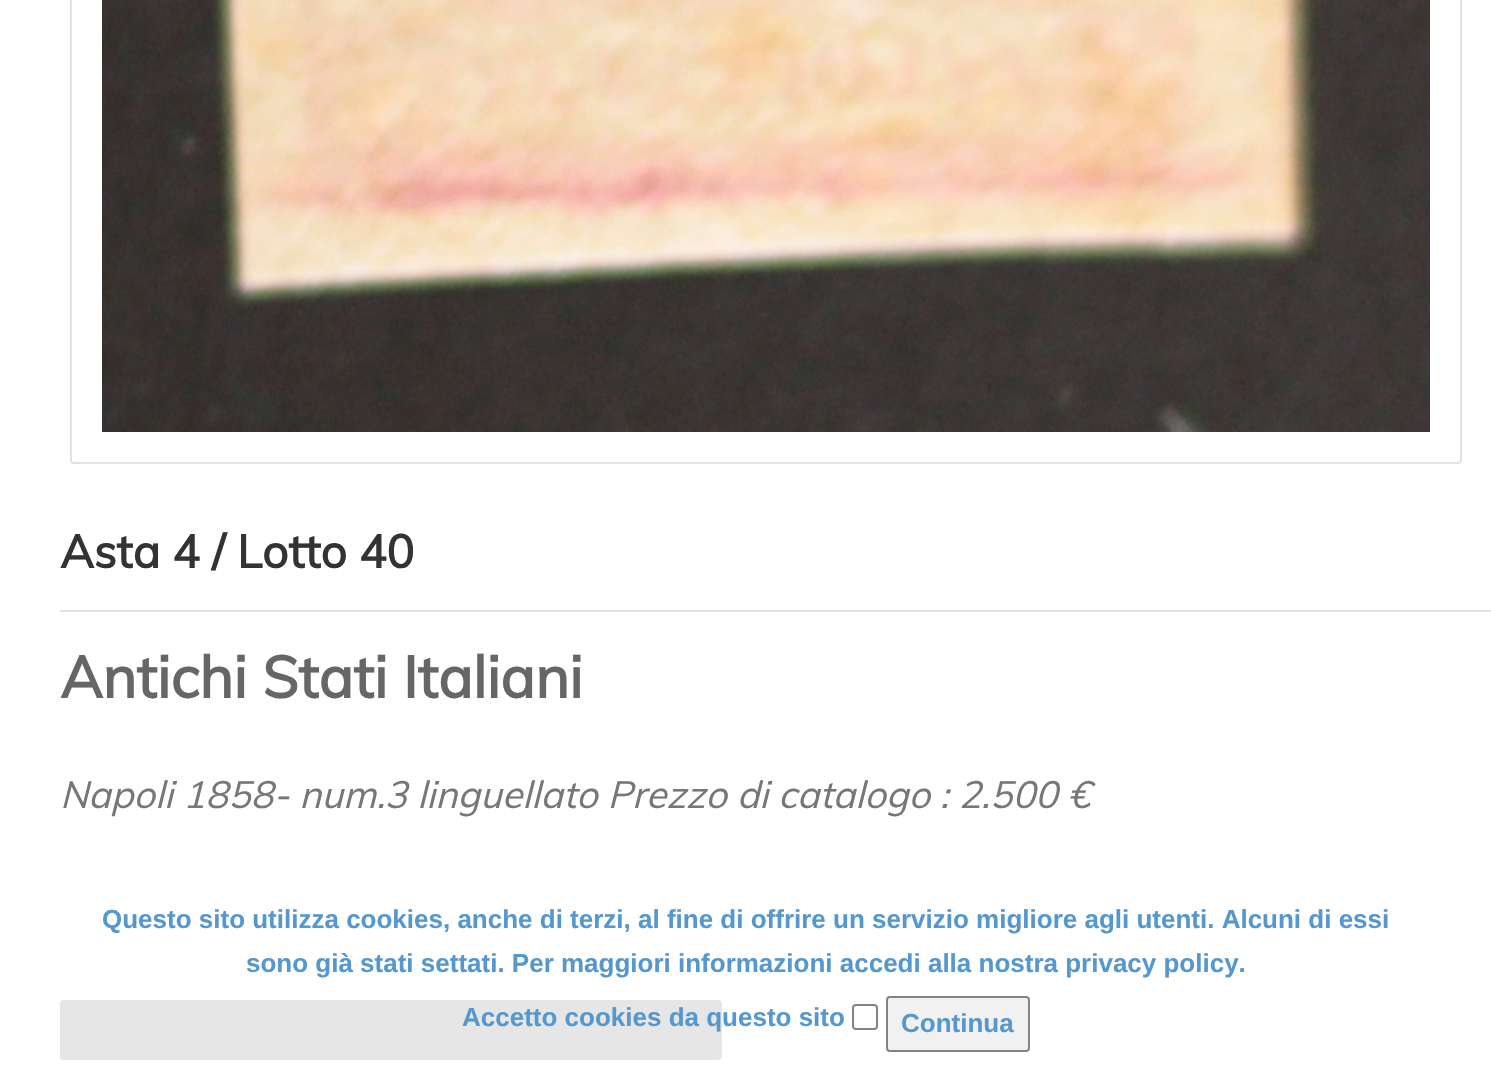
void draw(SkCanvas* canvas) {
	SkPaint fill;
	fill.setAntiAlias(true);
	auto makeFont = [&](const char* family, int weight, float size, bool italic = false) {
		SkFontStyle style(weight, SkFontStyle::kNormal_Width,
			italic ? SkFontStyle::kItalic_Slant : SkFontStyle::kUpright_Slant);
		SkFont result(fontMgr->matchFamilyStyle(family, style), size);
		result.setSubpixel(true);
		return result;
	};
	auto text = [&](const char* s, float x, float y, const SkFont& font) {
		canvas->drawString(s, x, y, font, fill);
	};
	auto box = [&](float l, float t, float r, float b) {
		canvas->drawRect(SkRect::MakeLTRB(l, t, r, b), fill);
	};
	auto picture = [&](const char* path, float l, float t, float r, float b) {
		auto image = SkImages::DeferredFromEncodedData(SkData::MakeFromFileName(path));
		canvas->drawImageRect(image, SkRect::MakeLTRB(l, t, r, b), SkSamplingOptions());
	};
	canvas->clear(0xFFFFFFFF);
	fill.setStyle(SkPaint::kStroke_Style);
	fill.setStrokeWidth(2);
	fill.setColor(0xFFE2E2E2);
	canvas->drawRoundRect(SkRect::MakeLTRB(71, -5, 1461, 463), 3, 3, fill);
	picture("image0.png", 102, 0, 1430, 432);
	fill.setStyle(SkPaint::kFill_Style);
	box(60, 610, 1491, 612);
	fill.setColor(0xFF000000);
	canvas->drawRoundRect(SkRect::MakeLTRB(61, 1001, 721, 1059), 3, 3, fill);
	fill.setStyle(SkPaint::kStroke_Style);
	canvas->drawRoundRect(SkRect::MakeLTRB(61, 1001, 721, 1059), 3, 3, fill);
	fill.setStyle(SkPaint::kFill_Style);
	fill.setColor(0xE6FFFFFF);
	box(60, 1000, 722, 1060);
	fill.setStyle(SkPaint::kStroke_Style);
	fill.setColor(0xFF848484);
	canvas->drawRoundRect(SkRect::MakeLTRB(853, 1005, 877, 1029), 3, 3, fill);
	fill.setStyle(SkPaint::kFill_Style);
	fill.setColor(0xFFF1F1F1);
	canvas->drawRoundRect(SkRect::MakeLTRB(887, 997, 1029, 1051), 3, 3, fill);
	fill.setStyle(SkPaint::kStroke_Style);
	fill.setColor(0xFF848484);
	canvas->drawRoundRect(SkRect::MakeLTRB(887, 997, 1029, 1051), 3, 3, fill);
	auto font1 = makeFont("Muli", 700, 46);
	fill.setStyle(SkPaint::kFill_Style);
	fill.setColor(0xFF333333);
	text("Asta 4 / Lotto 40", 60, 568, font1);
	auto font2 = makeFont("Muli", 700, 58);
	fill.setColor(0xFF666666);
	text("Antichi Stati Italiani", 60, 698, font2);
	auto font3 = makeFont("Muli", 400, 37.7f, true);
	fill.setColor(0xFF777777);
	text("Napoli 1858- num.3 linguellato Prezzo di catalogo : 2.500 €", 60, 808, font3);
	auto font4 = makeFont("Liberation Sans", 700, 26);
	fill.setColor(0xFF5597CF);
	text("Questo sito utilizza cookies, anche di terzi, al fine di offrire un servizio migliore agli utenti. Alcuni di essi", 102, 928, font4);
	text("sono già stati settati. Per maggiori informazioni accedi alla nostra privacy policy.", 246, 972, font4);
	text("Accetto cookies da questo sito", 462, 1026, font4);
	text("Continua", 901, 1032, font4);
}
